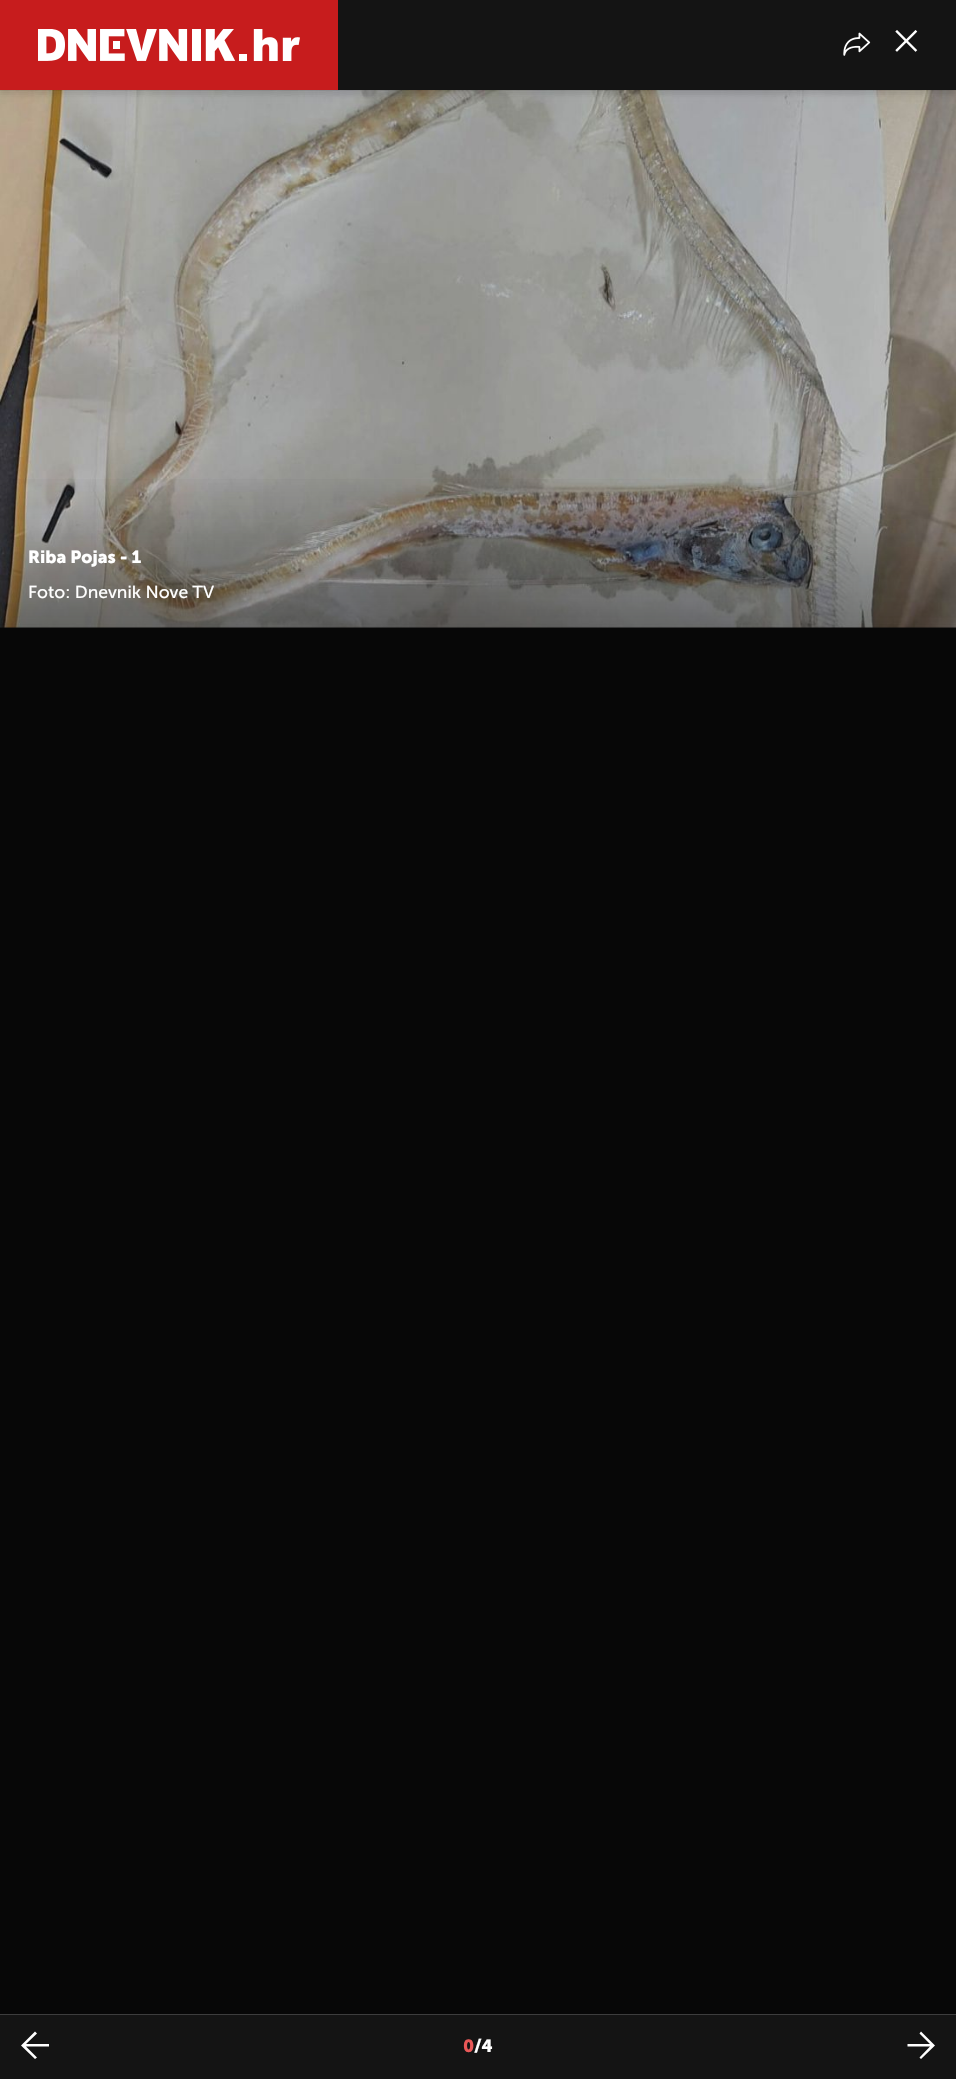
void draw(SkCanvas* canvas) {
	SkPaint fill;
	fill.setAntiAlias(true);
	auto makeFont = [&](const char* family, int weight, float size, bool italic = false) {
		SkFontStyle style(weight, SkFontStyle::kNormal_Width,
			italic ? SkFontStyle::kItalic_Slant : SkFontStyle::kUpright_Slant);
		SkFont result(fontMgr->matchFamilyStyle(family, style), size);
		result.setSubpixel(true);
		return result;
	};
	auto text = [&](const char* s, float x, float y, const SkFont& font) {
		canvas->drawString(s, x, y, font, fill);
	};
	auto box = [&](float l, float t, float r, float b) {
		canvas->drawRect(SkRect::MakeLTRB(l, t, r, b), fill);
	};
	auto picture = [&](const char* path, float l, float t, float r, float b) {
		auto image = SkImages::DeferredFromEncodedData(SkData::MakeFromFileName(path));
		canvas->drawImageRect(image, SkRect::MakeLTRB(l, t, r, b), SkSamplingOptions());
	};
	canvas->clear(0xFF070707);
	picture("image3.png", 0, 90, 956, 628);
	fill.setColor(0x1A000000);
	fill.setMaskFilter(SkMaskFilter::MakeBlur(kNormal_SkBlurStyle, 2.5f));
	canvas->drawRect(SkRect::MakeLTRB(0, 5, 956, 95), fill);
	fill.setMaskFilter(nullptr);
	fill.setColor(0xFF141414);
	box(338, 0, 956, 90);
	fill.setColor(0xFFC71C1D);
	box(0, 0, 338, 90);
	picture("image0.png", 38, 29, 300, 61);
	picture("image1.png", 843, 32, 871, 56);
	picture("image2.png", 895, 30, 918, 52);
	{
		const SkColor colors[] = {0x66141414, 0x00141414};
		const float stops[] = {0, 1};
		const SkPoint ends[] = {{478, 628}, {478, 470}};
		fill.setShader(SkGradientShader::MakeLinear(ends, colors, stops, 2, SkTileMode::kClamp));
		fill.setAlpha(255);
	}
	box(0, 479, 956, 628);
	fill.setShader(nullptr);
	fill.setColor(0xFF141414);
	box(0, 2015, 956, 2079);
	fill.setColor(0xFF3D3D3D);
	box(0, 2014, 956, 2015);
	fill.setColor(0xFFFFFFFF);
	canvas->drawPath(SkPathBuilder().moveTo(35, 2059).lineTo(37, 2057.5f).lineTo(26, 2046.5f).lineTo(49, 2046.5f).lineTo(49, 2044).lineTo(26, 2044).lineTo(37, 2033.5f).lineTo(35, 2031.5f).lineTo(21, 2045.5f).close().detach(), fill);
	canvas->drawPath(SkPathBuilder().moveTo(921, 2059).lineTo(919.5f, 2057.5f).lineTo(930, 2046.5f).lineTo(907.5f, 2046.5f).lineTo(907.5f, 2044).lineTo(930, 2044).lineTo(919.5f, 2033.5f).lineTo(921, 2031.5f).lineTo(935, 2045.5f).close().detach(), fill);
	auto font1 = makeFont("Museo Sans", 400, 17.5f);
	text("Riba Pojas - 1", 28, 563, font1);
	auto font2 = makeFont("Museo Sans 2", 400, 17.5f);
	text("Foto: Dnevnik Nove TV", 28, 598, font2);
	fill.setColor(0xFFE95858);
	text("0", 463, 2052, font1);
	fill.setColor(0xFFFFFFFF);
	text("/4", 474, 2052, font1);
}
